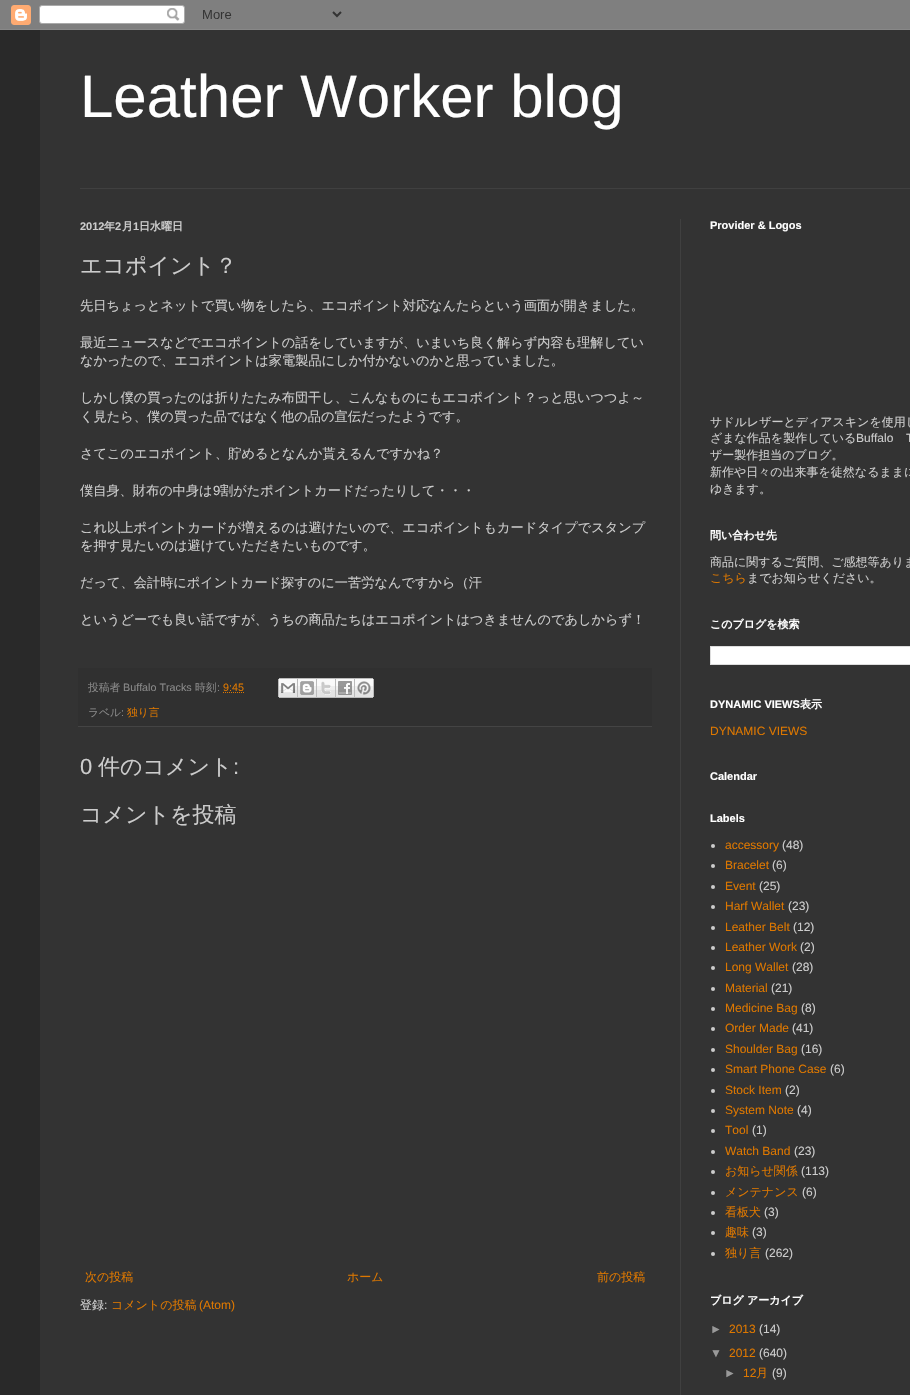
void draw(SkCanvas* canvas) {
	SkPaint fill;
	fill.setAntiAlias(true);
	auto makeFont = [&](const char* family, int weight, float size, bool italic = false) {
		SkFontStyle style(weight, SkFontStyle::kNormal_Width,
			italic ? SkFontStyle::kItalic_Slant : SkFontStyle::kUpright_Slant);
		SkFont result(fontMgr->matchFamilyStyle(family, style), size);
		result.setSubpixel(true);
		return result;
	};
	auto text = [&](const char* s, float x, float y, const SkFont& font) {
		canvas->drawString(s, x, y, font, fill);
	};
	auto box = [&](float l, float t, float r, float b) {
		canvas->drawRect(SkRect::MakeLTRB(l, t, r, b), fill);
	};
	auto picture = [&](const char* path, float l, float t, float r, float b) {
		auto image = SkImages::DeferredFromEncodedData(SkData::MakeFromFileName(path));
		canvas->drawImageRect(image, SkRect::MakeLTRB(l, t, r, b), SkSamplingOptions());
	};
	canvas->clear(0xFF292929);
	picture("image0.png", 0, 0, 910, 30);
	fill.setColor(0xFF333333);
	box(40, 30, 910, 1395);
	fill.setColor(0xFF404040);
	box(80, 188, 910, 189);
	box(680, 219, 681, 1395);
	fill.setColor(0xFF303030);
	box(78, 668, 652, 726);
	fill.setColor(0xFF444444);
	box(78, 726, 652, 727);
	fill.setStyle(SkPaint::kStroke_Style);
	fill.setStrokeWidth(1);
	fill.setColor(0xFFDD7700);
	fill.setPathEffect(SkDashPathEffect::Make({{1, 1}}, 0));
	canvas->drawPath(SkPathBuilder().moveTo(223, 692.5f).lineTo(244, 692.5f).detach(), fill);
	fill.setPathEffect(nullptr);
	picture("image1.png", 278, 678, 298, 698);
	picture("image2.png", 298, 678, 317, 698);
	picture("image3.png", 317, 678, 336, 698);
	picture("image4.png", 336, 678, 355, 698);
	picture("image5.png", 355, 678, 374, 698);
	fill.setStyle(SkPaint::kFill_Style);
	fill.setColor(0xFFFFFFFF);
	canvas->drawRect(SkRect::MakeLTRB(710.5f, 646.5f, 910.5f, 664.5f), fill);
	fill.setStyle(SkPaint::kStroke_Style);
	fill.setColor(0xFFDDDDDD);
	canvas->drawRect(SkRect::MakeLTRB(710.5f, 646.5f, 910.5f, 664.5f), fill);
	fill.setStyle(SkPaint::kFill_Style);
	fill.setColor(0xFFCCCCCC);
	canvas->drawCircle(713, 846, 2, fill);
	canvas->drawCircle(713, 866, 2, fill);
	canvas->drawCircle(713, 887, 2, fill);
	canvas->drawCircle(713, 907, 2, fill);
	canvas->drawCircle(713, 928, 2, fill);
	canvas->drawCircle(713, 948, 2, fill);
	canvas->drawCircle(713, 968, 2, fill);
	canvas->drawCircle(713, 989, 2, fill);
	canvas->drawCircle(713, 1009, 2, fill);
	canvas->drawCircle(713, 1029, 2, fill);
	canvas->drawCircle(713, 1050, 2, fill);
	canvas->drawCircle(713, 1070, 2, fill);
	canvas->drawCircle(713, 1091, 2, fill);
	canvas->drawCircle(713, 1111, 2, fill);
	canvas->drawCircle(713, 1131, 2, fill);
	canvas->drawCircle(713, 1152, 2, fill);
	canvas->drawCircle(713, 1172, 2, fill);
	canvas->drawCircle(713, 1193, 2, fill);
	canvas->drawCircle(713, 1213, 2, fill);
	canvas->drawCircle(713, 1233, 2, fill);
	canvas->drawCircle(713, 1254, 2, fill);
	auto font1 = makeFont("Liberation Sans", 400, 60);
	fill.setColor(0xFFFFFFFF);
	text("Leather Worker blog", 80, 117, font1);
	auto font2 = makeFont("Liberation Sans", 700, 11);
	fill.setColor(0xFFCCCCCC);
	text("2012", 80, 230, font2);
	auto font3 = makeFont("WenQuanYi Zen Hei", 700, 11);
	text("年", 104, 230, font3);
	text("2", 115, 230, font2);
	text("月", 122, 230, font3);
	text("1", 133, 230, font2);
	text("日水曜日", 139, 230, font3);
	auto font4 = makeFont("WenQuanYi Zen Hei", 500, 22);
	text("エコポイント？", 80, 273, font4);
	auto font5 = makeFont("WenQuanYi Zen Hei", 500, 13.2f);
	text("先日ちょっとネットで買い物をしたら、エコポイント対応なんたらという画面が開きました。", 80, 310, font5);
	text("最近ニュースなどでエコポイントの話をしていますが、いまいち良く解らず内容も理解してい", 80, 347, font5);
	text("なかったので、エコポイントは家電製品にしか付かないのかと思っていました。", 80, 365, font5);
	text("しかし僕の買ったのは折りたたみ布団干し、こんなものにもエコポイント？っと思いつつよ～", 80, 402, font5);
	text("く見たら、僕の買った品ではなく他の品の宣伝だったようです。", 80, 421, font5);
	text("さてこのエコポイント、貯めるとなんか貰えるんですかね？", 80, 458, font5);
	text("僕自身、財布の中身は", 80, 495, font5);
	auto font6 = makeFont("Liberation Sans", 400, 13.2f);
	text("9", 213, 495, font6);
	text("割がたポイントカードだったりして・・・", 220, 495, font5);
	text("これ以上ポイントカードが増えるのは避けたいので、エコポイントもカードタイプでスタンプ", 80, 532, font5);
	text("を押す見たいのは避けていただきたいものです。", 80, 550, font5);
	text("だって、会計時にポイントカード探すのに一苦労なんですから（汗", 80, 587, font5);
	text("というどーでも良い話ですが、うちの商品たちはエコポイントはつきませんのであしからず！", 80, 624, font5);
	auto font7 = makeFont("WenQuanYi Zen Hei", 500, 10.75f);
	fill.setColor(0xFF888888);
	text("投稿者", 88, 691, font7);
	auto font8 = makeFont("Liberation Sans", 400, 10.75f);
	text("Buffalo Tracks", 123, 691, font8);
	text("時刻", 195, 691, font7);
	text(":", 217, 691, font8);
	fill.setColor(0xFFDD7700);
	text("9:45", 223, 691, font8);
	fill.setColor(0xFF888888);
	text("ラベル", 88, 716, font7);
	text(":", 121, 716, font8);
	fill.setColor(0xFFDD7700);
	text("独り言", 127, 716, font7);
	auto font9 = makeFont("Liberation Sans", 400, 22);
	fill.setColor(0xFFCCCCCC);
	text("0", 80, 774, font9);
	text("件のコメント", 98, 774, font4);
	text(":", 233, 774, font9);
	text("コメントを投稿", 80, 822, font4);
	auto font10 = makeFont("WenQuanYi Zen Hei", 500, 12);
	fill.setColor(0xFFDD7700);
	text("次の投稿", 85, 1281, font10);
	text("ホーム", 347, 1281, font10);
	text("前の投稿", 597, 1281, font10);
	fill.setColor(0xFFCCCCCC);
	text("登録", 80, 1309, font10);
	auto font11 = makeFont("Liberation Sans", 400, 12);
	text(":", 104, 1309, font11);
	fill.setColor(0xFFDD7700);
	text("コメントの投稿", 111, 1309, font10);
	text("(Atom)", 199, 1309, font11);
	fill.setColor(0xFFFFFFFF);
	text("Provider & Logos", 710, 229, font2);
	fill.setColor(0xFFCCCCCC);
	text("サドルレザーとディアスキンを使用し", 710, 426, font10);
	text("ざまな作品を製作している", 710, 442, font10);
	text("Buffalo", 856, 442, font11);
	text("T", 906, 442, font11);
	text("ザー製作担当のブログ。", 710, 459, font10);
	text("新作や日々の出来事を徒然なるままに", 710, 476, font10);
	text("ゆきます。", 710, 493, font10);
	fill.setColor(0xFFFFFFFF);
	text("問い合わせ先", 710, 539, font3);
	fill.setColor(0xFFCCCCCC);
	text("商品に関するご質問、ご感想等ありま", 710, 566, font10);
	fill.setColor(0xFFDD7700);
	text("こちら", 710, 582, font10);
	fill.setColor(0xFFCCCCCC);
	text("までお知らせください。", 747, 582, font10);
	fill.setColor(0xFFFFFFFF);
	text("このブログを検索", 710, 628, font3);
	text("DYNAMIC VIEWS", 710, 708, font2);
	text("表示", 800, 708, font3);
	fill.setColor(0xFFDD7700);
	text("DYNAMIC VIEWS", 710, 735, font11);
	fill.setColor(0xFFFFFFFF);
	text("Calendar", 710, 780, font2);
	text("Labels", 710, 822, font2);
	fill.setColor(0xFFDD7700);
	text("accessory", 725, 849, font11);
	fill.setColor(0xFFCCCCCC);
	text("(48)", 782, 849, font11);
	fill.setColor(0xFFDD7700);
	text("Bracelet", 725, 869, font11);
	fill.setColor(0xFFCCCCCC);
	text("(6)", 772, 869, font11);
	fill.setColor(0xFFDD7700);
	text("Event", 725, 890, font11);
	fill.setColor(0xFFCCCCCC);
	text("(25)", 759, 890, font11);
	fill.setColor(0xFFDD7700);
	text("Harf Wallet", 725, 910, font11);
	fill.setColor(0xFFCCCCCC);
	text("(23)", 788, 910, font11);
	fill.setColor(0xFFDD7700);
	text("Leather Belt", 725, 931, font11);
	fill.setColor(0xFFCCCCCC);
	text("(12)", 793, 931, font11);
	fill.setColor(0xFFDD7700);
	text("Leather Work", 725, 951, font11);
	fill.setColor(0xFFCCCCCC);
	text("(2)", 800, 951, font11);
	fill.setColor(0xFFDD7700);
	text("Long Wallet", 725, 971, font11);
	fill.setColor(0xFFCCCCCC);
	text("(28)", 792, 971, font11);
	fill.setColor(0xFFDD7700);
	text("Material", 725, 992, font11);
	fill.setColor(0xFFCCCCCC);
	text("(21)", 771, 992, font11);
	fill.setColor(0xFFDD7700);
	text("Medicine Bag", 725, 1012, font11);
	fill.setColor(0xFFCCCCCC);
	text("(8)", 801, 1012, font11);
	fill.setColor(0xFFDD7700);
	text("Order Made", 725, 1032, font11);
	fill.setColor(0xFFCCCCCC);
	text("(41)", 792, 1032, font11);
	fill.setColor(0xFFDD7700);
	text("Shoulder Bag", 725, 1053, font11);
	fill.setColor(0xFFCCCCCC);
	text("(16)", 801, 1053, font11);
	fill.setColor(0xFFDD7700);
	text("Smart Phone Case", 725, 1073, font11);
	fill.setColor(0xFFCCCCCC);
	text("(6)", 830, 1073, font11);
	fill.setColor(0xFFDD7700);
	text("Stock Item", 725, 1094, font11);
	fill.setColor(0xFFCCCCCC);
	text("(2)", 785, 1094, font11);
	fill.setColor(0xFFDD7700);
	text("System Note", 725, 1114, font11);
	fill.setColor(0xFFCCCCCC);
	text("(4)", 797, 1114, font11);
	fill.setColor(0xFFDD7700);
	text("Tool", 725, 1134, font11);
	fill.setColor(0xFFCCCCCC);
	text("(1)", 752, 1134, font11);
	fill.setColor(0xFFDD7700);
	text("Watch Band", 725, 1155, font11);
	fill.setColor(0xFFCCCCCC);
	text("(23)", 794, 1155, font11);
	fill.setColor(0xFFDD7700);
	text("お知らせ関係", 725, 1175, font10);
	fill.setColor(0xFFCCCCCC);
	text("(113)", 801, 1175, font11);
	fill.setColor(0xFFDD7700);
	text("メンテナンス", 725, 1196, font10);
	fill.setColor(0xFFCCCCCC);
	text("(6)", 802, 1196, font11);
	fill.setColor(0xFFDD7700);
	text("看板犬", 725, 1216, font10);
	fill.setColor(0xFFCCCCCC);
	text("(3)", 764, 1216, font11);
	fill.setColor(0xFFDD7700);
	text("趣味", 725, 1236, font10);
	fill.setColor(0xFFCCCCCC);
	text("(3)", 752, 1236, font11);
	fill.setColor(0xFFDD7700);
	text("独り言", 725, 1257, font10);
	fill.setColor(0xFFCCCCCC);
	text("(262)", 765, 1257, font11);
	fill.setColor(0xFFFFFFFF);
	text("ブログ アーカイブ", 710, 1304, font3);
	fill.setColor(0xFF999999);
	text("►", 710, 1333, font11);
	fill.setColor(0xFFDD7700);
	text("2013", 729, 1333, font11);
	fill.setColor(0xFFCCCCCC);
	text("(14)", 759, 1333, font11);
	fill.setColor(0xFF999999);
	text("▼", 710, 1357, font11);
	fill.setColor(0xFFDD7700);
	text("2012", 729, 1357, font11);
	fill.setColor(0xFFCCCCCC);
	text("(640)", 759, 1357, font11);
	fill.setColor(0xFF999999);
	text("►", 724, 1377, font11);
	fill.setColor(0xFFDD7700);
	text("12", 743, 1377, font11);
	text("月", 756, 1377, font10);
	fill.setColor(0xFFCCCCCC);
	text("(9)", 772, 1377, font11);
}
